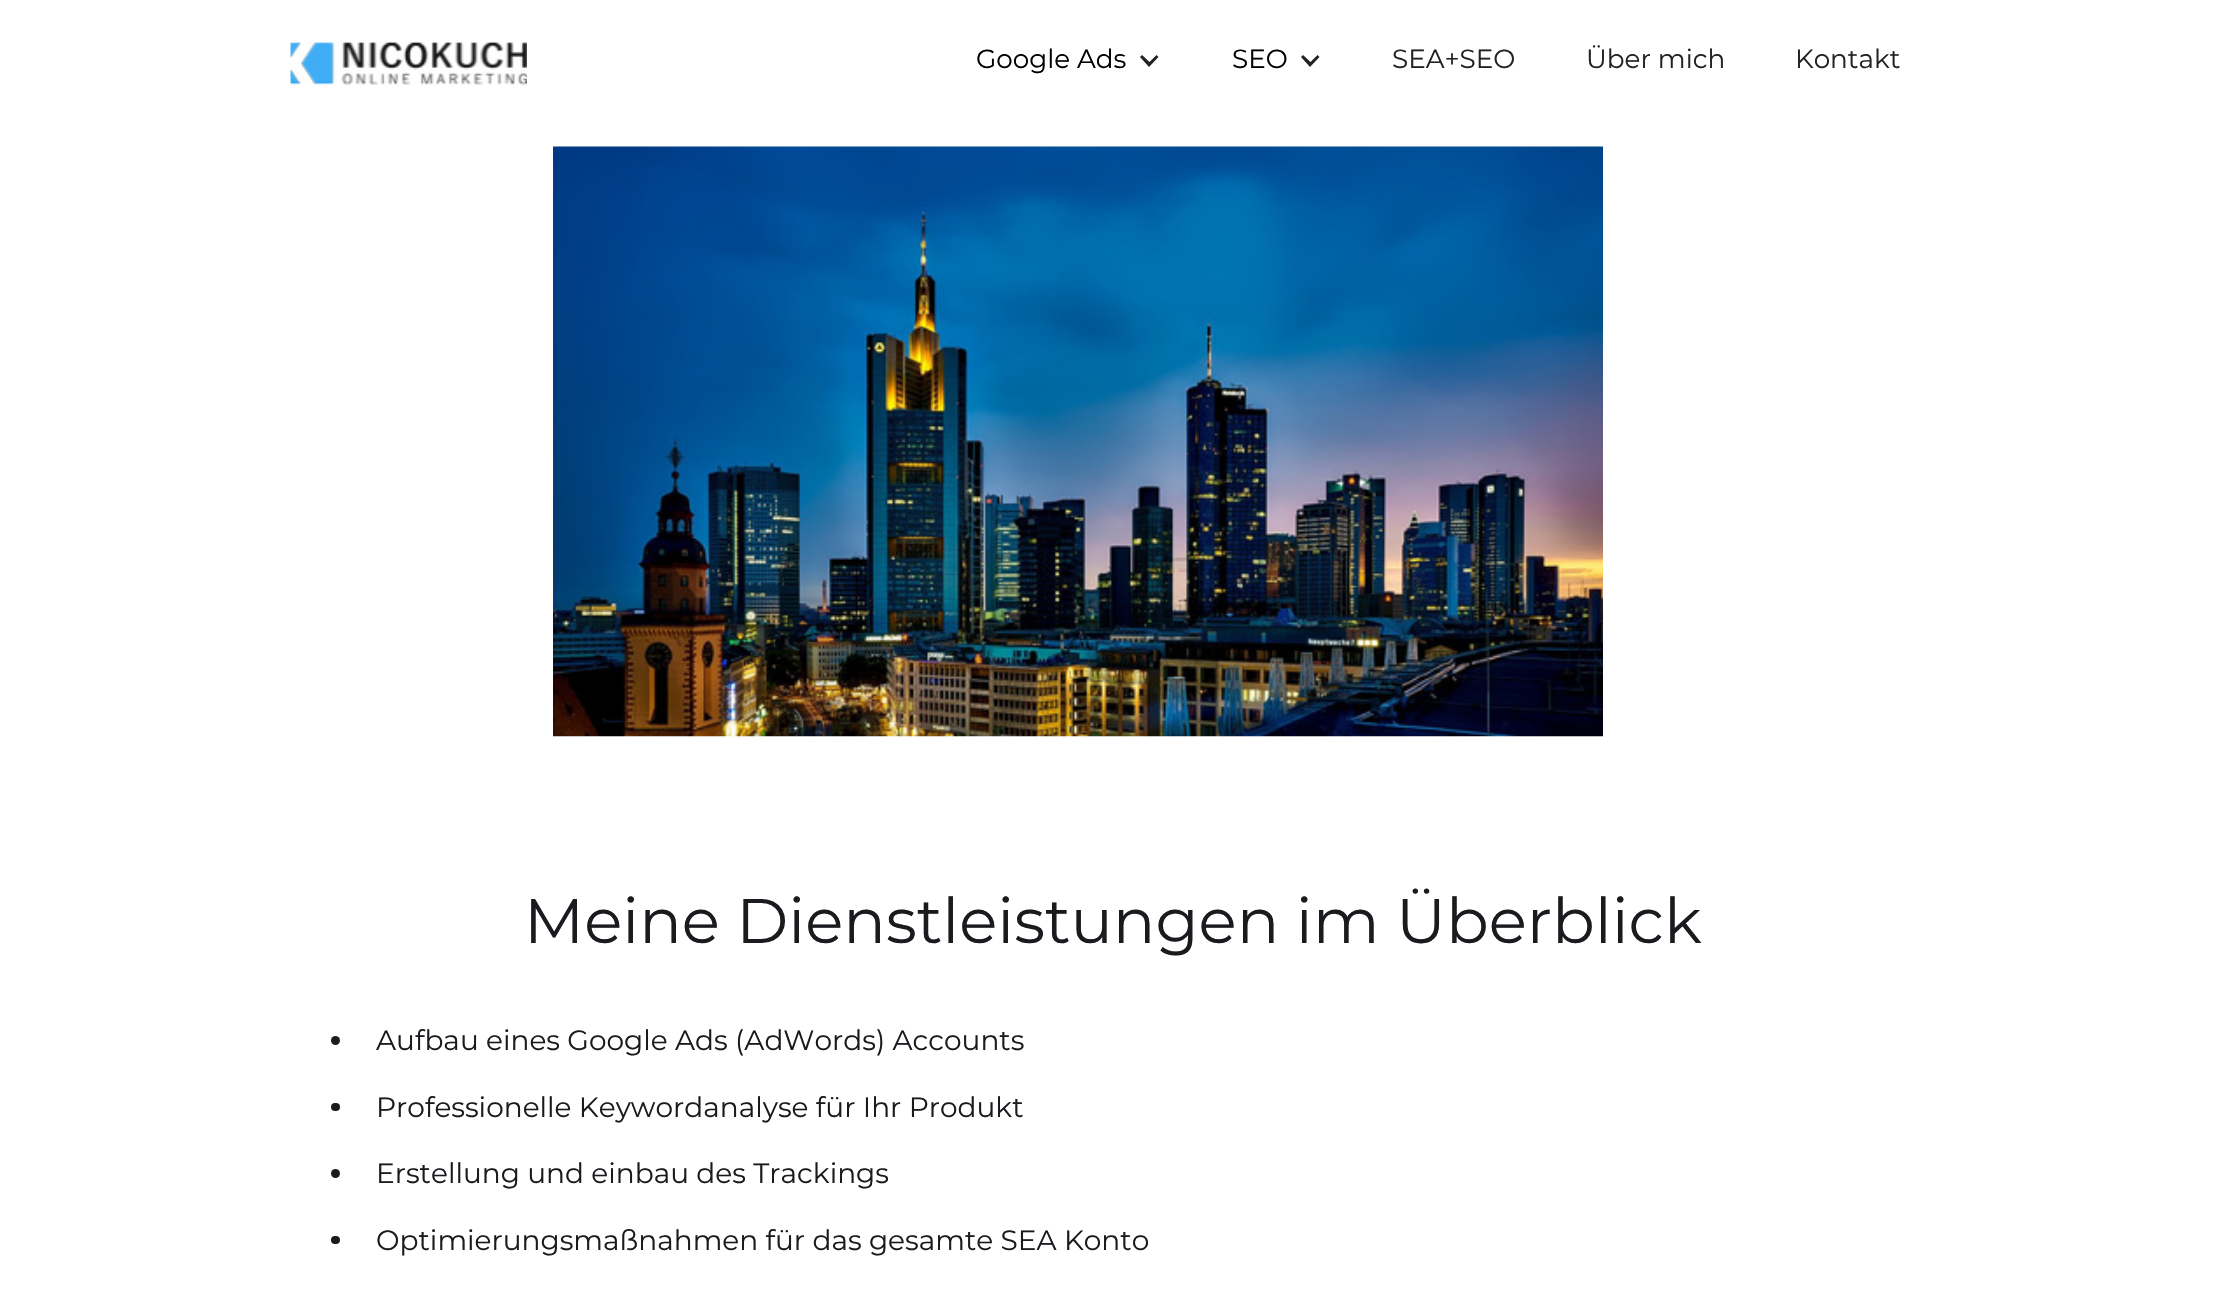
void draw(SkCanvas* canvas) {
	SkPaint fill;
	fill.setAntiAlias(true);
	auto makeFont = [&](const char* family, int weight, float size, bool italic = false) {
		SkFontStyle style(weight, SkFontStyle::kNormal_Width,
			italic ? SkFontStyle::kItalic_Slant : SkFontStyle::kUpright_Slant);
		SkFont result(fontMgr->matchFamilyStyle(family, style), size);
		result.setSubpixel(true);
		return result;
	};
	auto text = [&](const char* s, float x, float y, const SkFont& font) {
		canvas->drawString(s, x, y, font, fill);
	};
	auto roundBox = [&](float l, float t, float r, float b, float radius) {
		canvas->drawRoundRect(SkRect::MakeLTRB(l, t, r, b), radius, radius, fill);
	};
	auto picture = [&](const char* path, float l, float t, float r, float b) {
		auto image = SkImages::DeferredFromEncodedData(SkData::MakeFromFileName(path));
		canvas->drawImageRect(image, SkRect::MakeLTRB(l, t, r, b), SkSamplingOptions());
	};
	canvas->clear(0xFFFFFFFF);
	picture("image0.png", 290, 41, 527, 85);
	fill.setColor(0xFF222222);
	canvas->drawPath(SkPathBuilder().moveTo(1156.5f, 55).lineTo(1149.5f, 62).lineTo(1142, 55).lineTo(1140, 57).lineTo(1149, 67).lineTo(1158.5f, 57).close().detach(), fill);
	canvas->drawPath(SkPathBuilder().moveTo(1317.5f, 55).lineTo(1310.5f, 62).lineTo(1303, 55).lineTo(1301, 57).lineTo(1310, 67).lineTo(1319.5f, 57).close().detach(), fill);
	picture("image1.png", 553, 146, 1603, 737);
	fill.setColor(0xFF1A1B1F);
	canvas->drawCircle(335.5f, 1040.5f, 4.5f, fill);
	roundBox(331, 1103, 340, 1111, 4);
	canvas->drawCircle(335.5f, 1173.5f, 4.5f, fill);
	roundBox(331, 1236, 340, 1244, 4);
	auto font1 = makeFont("Montserrat", 400, 26.25f);
	fill.setColor(0xFF000000);
	text("Google Ads", 976, 68, font1);
	text("SEO", 1232, 68, font1);
	fill.setColor(0xFF222222);
	text("SEA+SEO", 1392, 68, font1);
	text("Über mich", 1586, 68, font1);
	text("Kontakt", 1795, 68, font1);
	auto font2 = makeFont("Montserrat", 400, 63);
	fill.setColor(0xFF1A1B1F);
	text("Meine Dienstleistungen im Überblick", 524, 943, font2);
	auto font3 = makeFont("Montserrat", 400, 28);
	text("Aufbau eines Google Ads (AdWords) Accounts", 376, 1050, font3);
	text("Professionelle Keywordanalyse für Ihr Produkt", 376, 1117, font3);
	text("Erstellung und einbau des Trackings", 376, 1183, font3);
	text("Optimierungsmaßnahmen für das gesamte SEA Konto", 376, 1250, font3);
}
